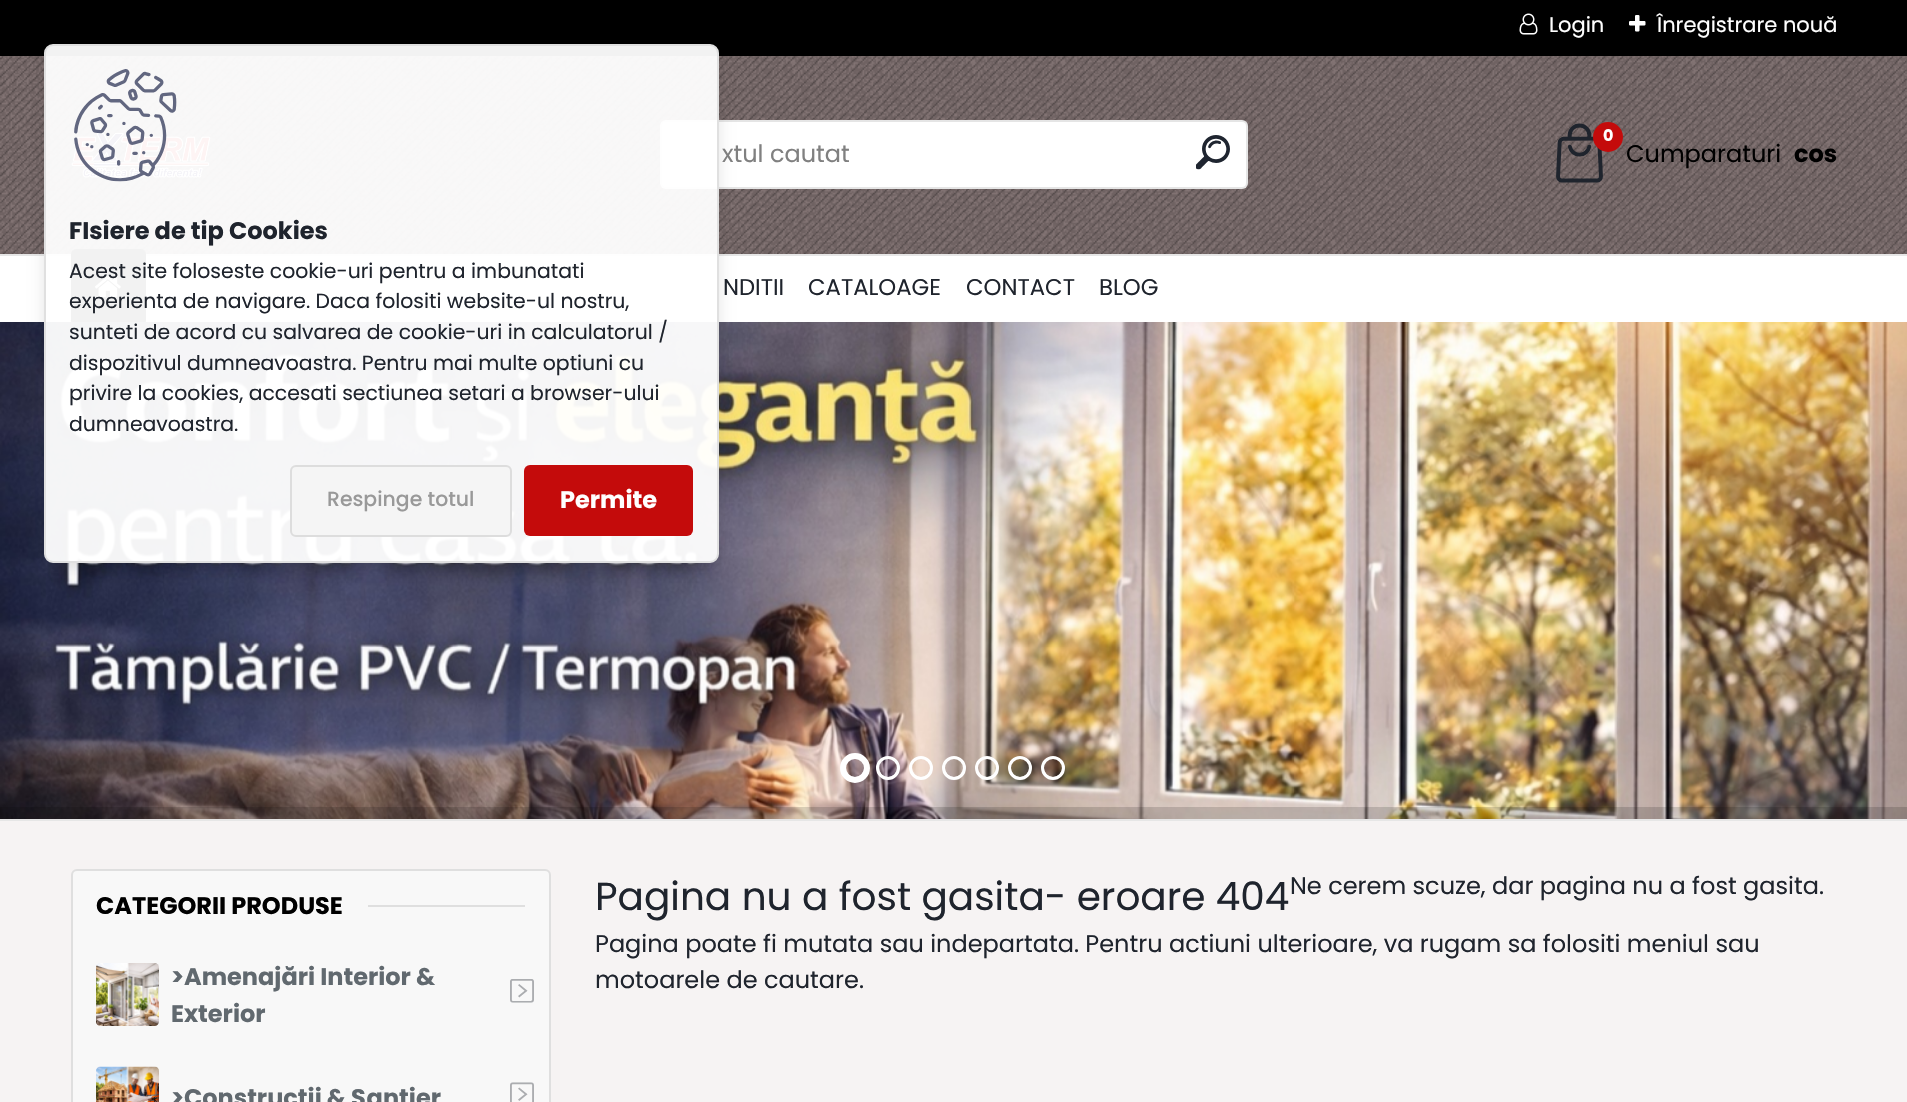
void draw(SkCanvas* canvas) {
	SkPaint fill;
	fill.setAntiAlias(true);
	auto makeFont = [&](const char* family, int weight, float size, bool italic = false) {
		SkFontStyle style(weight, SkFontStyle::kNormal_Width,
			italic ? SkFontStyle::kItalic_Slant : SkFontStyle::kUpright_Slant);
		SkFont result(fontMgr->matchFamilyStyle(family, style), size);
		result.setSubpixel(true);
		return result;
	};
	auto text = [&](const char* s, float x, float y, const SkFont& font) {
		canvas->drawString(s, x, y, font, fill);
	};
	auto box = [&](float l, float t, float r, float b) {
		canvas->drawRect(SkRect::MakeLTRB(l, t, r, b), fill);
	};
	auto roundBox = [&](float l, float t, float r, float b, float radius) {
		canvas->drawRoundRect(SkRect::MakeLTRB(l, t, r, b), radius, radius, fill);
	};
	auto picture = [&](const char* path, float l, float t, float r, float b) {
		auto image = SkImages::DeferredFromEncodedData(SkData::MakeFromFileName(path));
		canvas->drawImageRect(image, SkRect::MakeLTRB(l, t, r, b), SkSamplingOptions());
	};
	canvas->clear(0xFF000000);
	picture("image0.png", 1519, 13, 1538, 35);
	picture("image1.png", 1629, 15, 1646, 32);
	fill.setColor(0xFF827373);
	box(0, 56, 1907, 254);
	picture("image2.png", 0, 56, 1907, 254);
	fill.setColor(0xFFE6E6E6);
	box(0, 819, 1907, 821);
	picture("image3.png", 71, 132, 211, 178);
	fill.setColor(0xFFFFFFFF);
	roundBox(660, 120, 1248, 189, 6);
	fill.setStyle(SkPaint::kStroke_Style);
	fill.setStrokeWidth(2);
	fill.setColor(0x1A000000);
	canvas->drawRoundRect(SkRect::MakeLTRB(661, 121, 1247, 188), 5, 5, fill);
	picture("image4.png", 1196, 135, 1230, 170);
	picture("image5.png", 1556, 123, 1603, 183);
	fill.setStyle(SkPaint::kFill_Style);
	fill.setColor(0xFFC40B0B);
	canvas->drawCircle(1608, 137, 15, fill);
	fill.setColor(0xFFFFFFFF);
	box(0, 256, 1907, 322);
	fill.setColor(0xFFE6E6E6);
	box(0, 254, 1907, 256);
	fill.setColor(0xFF000000);
	roundBox(71, 249, 146, 326, 5);
	picture("image6.png", 95, 276, 121, 297);
	picture("image7.png", 0, 322, 1907, 819);
	fill.setStyle(SkPaint::kStroke_Style);
	fill.setStrokeWidth(6);
	fill.setColor(0xFFFFFFFF);
	canvas->drawCircle(855, 768, 12, fill);
	canvas->save();
	canvas->clipPath(SkPathBuilder(SkPathFillType::kEvenOdd).moveTo(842, 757).lineTo(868, 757).lineTo(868, 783).lineTo(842, 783).close().moveTo(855, 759).cubicTo(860, 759, 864, 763, 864, 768).cubicTo(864, 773, 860, 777, 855, 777).cubicTo(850, 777, 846, 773, 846, 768).cubicTo(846, 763, 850, 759, 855, 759).close().detach(), true);
	fill.setStyle(SkPaint::kFill_Style);
	fill.setMaskFilter(SkMaskFilter::MakeBlur(kNormal_SkBlurStyle, 1));
	canvas->drawRoundRect(SkRect::MakeLTRB(846, 761, 864, 779), 9, 9, fill);
	fill.setMaskFilter(nullptr);
	canvas->restore();
	fill.setStyle(SkPaint::kStroke_Style);
	fill.setStrokeWidth(3);
	canvas->drawCircle(888, 768, 10.5f, fill);
	canvas->save();
	canvas->clipPath(SkPathBuilder(SkPathFillType::kEvenOdd).moveTo(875, 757).lineTo(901, 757).lineTo(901, 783).lineTo(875, 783).close().moveTo(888, 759).cubicTo(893, 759, 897, 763, 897, 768).cubicTo(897, 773, 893, 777, 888, 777).cubicTo(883, 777, 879, 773, 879, 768).cubicTo(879, 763, 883, 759, 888, 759).close().detach(), true);
	fill.setStyle(SkPaint::kFill_Style);
	fill.setMaskFilter(SkMaskFilter::MakeBlur(kNormal_SkBlurStyle, 1));
	canvas->drawRoundRect(SkRect::MakeLTRB(879, 761, 897, 779), 9, 9, fill);
	fill.setMaskFilter(nullptr);
	canvas->restore();
	fill.setStyle(SkPaint::kStroke_Style);
	canvas->drawCircle(921, 768, 10.5f, fill);
	canvas->save();
	canvas->clipPath(SkPathBuilder(SkPathFillType::kEvenOdd).moveTo(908, 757).lineTo(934, 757).lineTo(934, 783).lineTo(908, 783).close().moveTo(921, 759).cubicTo(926, 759, 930, 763, 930, 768).cubicTo(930, 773, 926, 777, 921, 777).cubicTo(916, 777, 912, 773, 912, 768).cubicTo(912, 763, 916, 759, 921, 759).close().detach(), true);
	fill.setStyle(SkPaint::kFill_Style);
	fill.setMaskFilter(SkMaskFilter::MakeBlur(kNormal_SkBlurStyle, 1));
	canvas->drawRoundRect(SkRect::MakeLTRB(912, 761, 930, 779), 9, 9, fill);
	fill.setMaskFilter(nullptr);
	canvas->restore();
	fill.setStyle(SkPaint::kStroke_Style);
	canvas->drawCircle(954, 768, 10.5f, fill);
	canvas->save();
	canvas->clipPath(SkPathBuilder(SkPathFillType::kEvenOdd).moveTo(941, 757).lineTo(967, 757).lineTo(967, 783).lineTo(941, 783).close().moveTo(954, 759).cubicTo(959, 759, 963, 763, 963, 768).cubicTo(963, 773, 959, 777, 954, 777).cubicTo(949, 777, 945, 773, 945, 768).cubicTo(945, 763, 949, 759, 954, 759).close().detach(), true);
	fill.setStyle(SkPaint::kFill_Style);
	fill.setMaskFilter(SkMaskFilter::MakeBlur(kNormal_SkBlurStyle, 1));
	canvas->drawRoundRect(SkRect::MakeLTRB(945, 761, 963, 779), 9, 9, fill);
	fill.setMaskFilter(nullptr);
	canvas->restore();
	fill.setStyle(SkPaint::kStroke_Style);
	canvas->drawCircle(987, 768, 10.5f, fill);
	canvas->save();
	canvas->clipPath(SkPathBuilder(SkPathFillType::kEvenOdd).moveTo(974, 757).lineTo(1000, 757).lineTo(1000, 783).lineTo(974, 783).close().moveTo(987, 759).cubicTo(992, 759, 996, 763, 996, 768).cubicTo(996, 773, 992, 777, 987, 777).cubicTo(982, 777, 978, 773, 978, 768).cubicTo(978, 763, 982, 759, 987, 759).close().detach(), true);
	fill.setStyle(SkPaint::kFill_Style);
	fill.setMaskFilter(SkMaskFilter::MakeBlur(kNormal_SkBlurStyle, 1));
	canvas->drawRoundRect(SkRect::MakeLTRB(978, 761, 996, 779), 9, 9, fill);
	fill.setMaskFilter(nullptr);
	canvas->restore();
	fill.setStyle(SkPaint::kStroke_Style);
	canvas->drawCircle(1020, 768, 10.5f, fill);
	canvas->save();
	canvas->clipPath(SkPathBuilder(SkPathFillType::kEvenOdd).moveTo(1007, 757).lineTo(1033, 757).lineTo(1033, 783).lineTo(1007, 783).close().moveTo(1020, 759).cubicTo(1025, 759, 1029, 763, 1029, 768).cubicTo(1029, 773, 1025, 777, 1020, 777).cubicTo(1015, 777, 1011, 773, 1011, 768).cubicTo(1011, 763, 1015, 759, 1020, 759).close().detach(), true);
	fill.setStyle(SkPaint::kFill_Style);
	fill.setMaskFilter(SkMaskFilter::MakeBlur(kNormal_SkBlurStyle, 1));
	canvas->drawRoundRect(SkRect::MakeLTRB(1011, 761, 1029, 779), 9, 9, fill);
	fill.setMaskFilter(nullptr);
	canvas->restore();
	fill.setStyle(SkPaint::kStroke_Style);
	canvas->drawCircle(1053, 768, 10.5f, fill);
	canvas->save();
	canvas->clipPath(SkPathBuilder(SkPathFillType::kEvenOdd).moveTo(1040, 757).lineTo(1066, 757).lineTo(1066, 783).lineTo(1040, 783).close().moveTo(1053, 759).cubicTo(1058, 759, 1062, 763, 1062, 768).cubicTo(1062, 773, 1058, 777, 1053, 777).cubicTo(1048, 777, 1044, 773, 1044, 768).cubicTo(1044, 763, 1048, 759, 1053, 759).close().detach(), true);
	fill.setStyle(SkPaint::kFill_Style);
	fill.setMaskFilter(SkMaskFilter::MakeBlur(kNormal_SkBlurStyle, 1));
	canvas->drawRoundRect(SkRect::MakeLTRB(1044, 761, 1062, 779), 9, 9, fill);
	fill.setMaskFilter(nullptr);
	canvas->restore();
	fill.setColor(0x26000000);
	box(0, 807, 1907, 819);
	fill.setColor(0xFFF6F3F3);
	box(0, 821, 1907, 1102);
	fill.setColor(0xFFF8F8F8);
	canvas->drawRoundRect(SkRect::MakeLTRB(72, 870, 550, 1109), 5, 5, fill);
	fill.setStyle(SkPaint::kStroke_Style);
	fill.setStrokeWidth(2);
	fill.setColor(0xFFDFDFDF);
	canvas->drawRoundRect(SkRect::MakeLTRB(72, 870, 550, 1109), 5, 5, fill);
	fill.setStyle(SkPaint::kFill_Style);
	box(368, 905, 525, 907);
	picture("image8.png", 96, 963, 159, 1026);
	picture("image9.png", 510, 979, 534, 1003);
	picture("image10.png", 96, 1066, 159, 1102);
	picture("image11.png", 510, 1082, 534, 1102);
	canvas->save();
	canvas->clipPath(SkPathBuilder(SkPathFillType::kEvenOdd).moveTo(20, 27).lineTo(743, 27).lineTo(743, 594).lineTo(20, 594).close().moveTo(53, 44).lineTo(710, 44).cubicTo(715, 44, 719, 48, 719, 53).lineTo(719, 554).cubicTo(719, 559, 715, 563, 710, 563).lineTo(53, 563).cubicTo(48, 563, 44, 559, 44, 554).lineTo(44, 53).cubicTo(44, 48, 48, 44, 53, 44).close().detach(), true);
	fill.setColor(0x1A000000);
	fill.setMaskFilter(SkMaskFilter::MakeBlur(kNormal_SkBlurStyle, 7.5f));
	canvas->drawRoundRect(SkRect::MakeLTRB(44, 51, 719, 570), 9, 9, fill);
	fill.setMaskFilter(nullptr);
	canvas->restore();
	fill.setColor(0xF2FFFFFF);
	canvas->drawRoundRect(SkRect::MakeLTRB(45, 45, 718, 562), 8, 8, fill);
	fill.setStyle(SkPaint::kStroke_Style);
	fill.setColor(0xFFE0E0E0);
	canvas->drawRoundRect(SkRect::MakeLTRB(45, 45, 718, 562), 8, 8, fill);
	picture("image12.png", 74, 69, 177, 182);
	fill.setStyle(SkPaint::kFill_Style);
	fill.setColor(0xFFF5F5F5);
	canvas->drawRoundRect(SkRect::MakeLTRB(291, 466, 511, 536), 5, 5, fill);
	fill.setStyle(SkPaint::kStroke_Style);
	fill.setColor(0xFFDDDDDD);
	canvas->drawRoundRect(SkRect::MakeLTRB(291, 466, 511, 536), 5, 5, fill);
	fill.setStyle(SkPaint::kFill_Style);
	fill.setColor(0xFFC40B0B);
	roundBox(524, 465, 693, 536, 6);
	auto font1 = makeFont("Poppins", 400, 21);
	fill.setColor(0xFFFFFFFF);
	text("Login", 1549, 32, font1);
	text("Înregistrare nouă", 1657, 32, font1);
	auto font2 = makeFont("Poppins", 400, 24);
	fill.setColor(0xFF808080);
	text("xtul cautat", 722, 162, font2);
	auto font3 = makeFont("Poppins", 700, 16);
	fill.setColor(0xFFFFFFFF);
	text("0", 1603, 141, font3);
	fill.setColor(0xFF000000);
	text("Cumparaturi", 1626, 162, font2);
	auto font4 = makeFont("Poppins", 700, 24);
	text("cos", 1794, 162, font4);
	auto font5 = makeFont("Poppins", 400, 22.75f);
	fill.setColor(0xFF1F242D);
	text("NDITII", 723, 295, font5);
	text("CATALOAGE", 808, 295, font5);
	text("CONTACT", 966, 295, font5);
	text("BLOG", 1099, 295, font5);
	fill.setColor(0xFF000000);
	text("CATEGORII PRODUSE", 96, 914, font4);
	fill.setColor(0xFF61696F);
	text(">Amenajări Interior &", 171, 985, font4);
	text("Exterior", 171, 1022, font4);
	text(">Construcții & Șantier", 171, 1106, font4);
	auto font6 = makeFont("Poppins", 400, 39);
	fill.setColor(0xFF1F242D);
	text("Pagina nu a fost gasita- eroare 404", 595, 910, font6);
	text("Ne cerem scuze, dar pagina nu a fost gasita.", 1290, 894, font2);
	text("Pagina poate fi mutata sau indepartata. Pentru actiuni ulterioare, va rugam sa folositi meniul sau", 595, 952, font2);
	text("motoarele de cautare.", 595, 988, font2);
	text("FIsiere de tip Cookies", 69, 239, font4);
	auto font7 = makeFont("Poppins", 400, 20.4f);
	text("Acest site foloseste cookie-uri pentru a imbunatati", 69, 278, font7);
	text("experienta de navigare. Daca folositi website-ul nostru,", 69, 308, font7);
	text("sunteti de acord cu salvarea de cookie-uri in calculatorul /", 69, 339, font7);
	text("dispozitivul dumneavoastra. Pentru mai multe optiuni cu", 69, 370, font7);
	text("privire la cookies, accesati sectiunea setari a browser-ului", 69, 400, font7);
	text("dumneavoastra.", 69, 431, font7);
	auto font8 = makeFont("Poppins", 500, 20.4f);
	fill.setColor(0xFF999999);
	text("Respinge totul", 327, 506, font8);
	fill.setColor(0xFFFFFFFF);
	text("Permite", 560, 508, font4);
}
